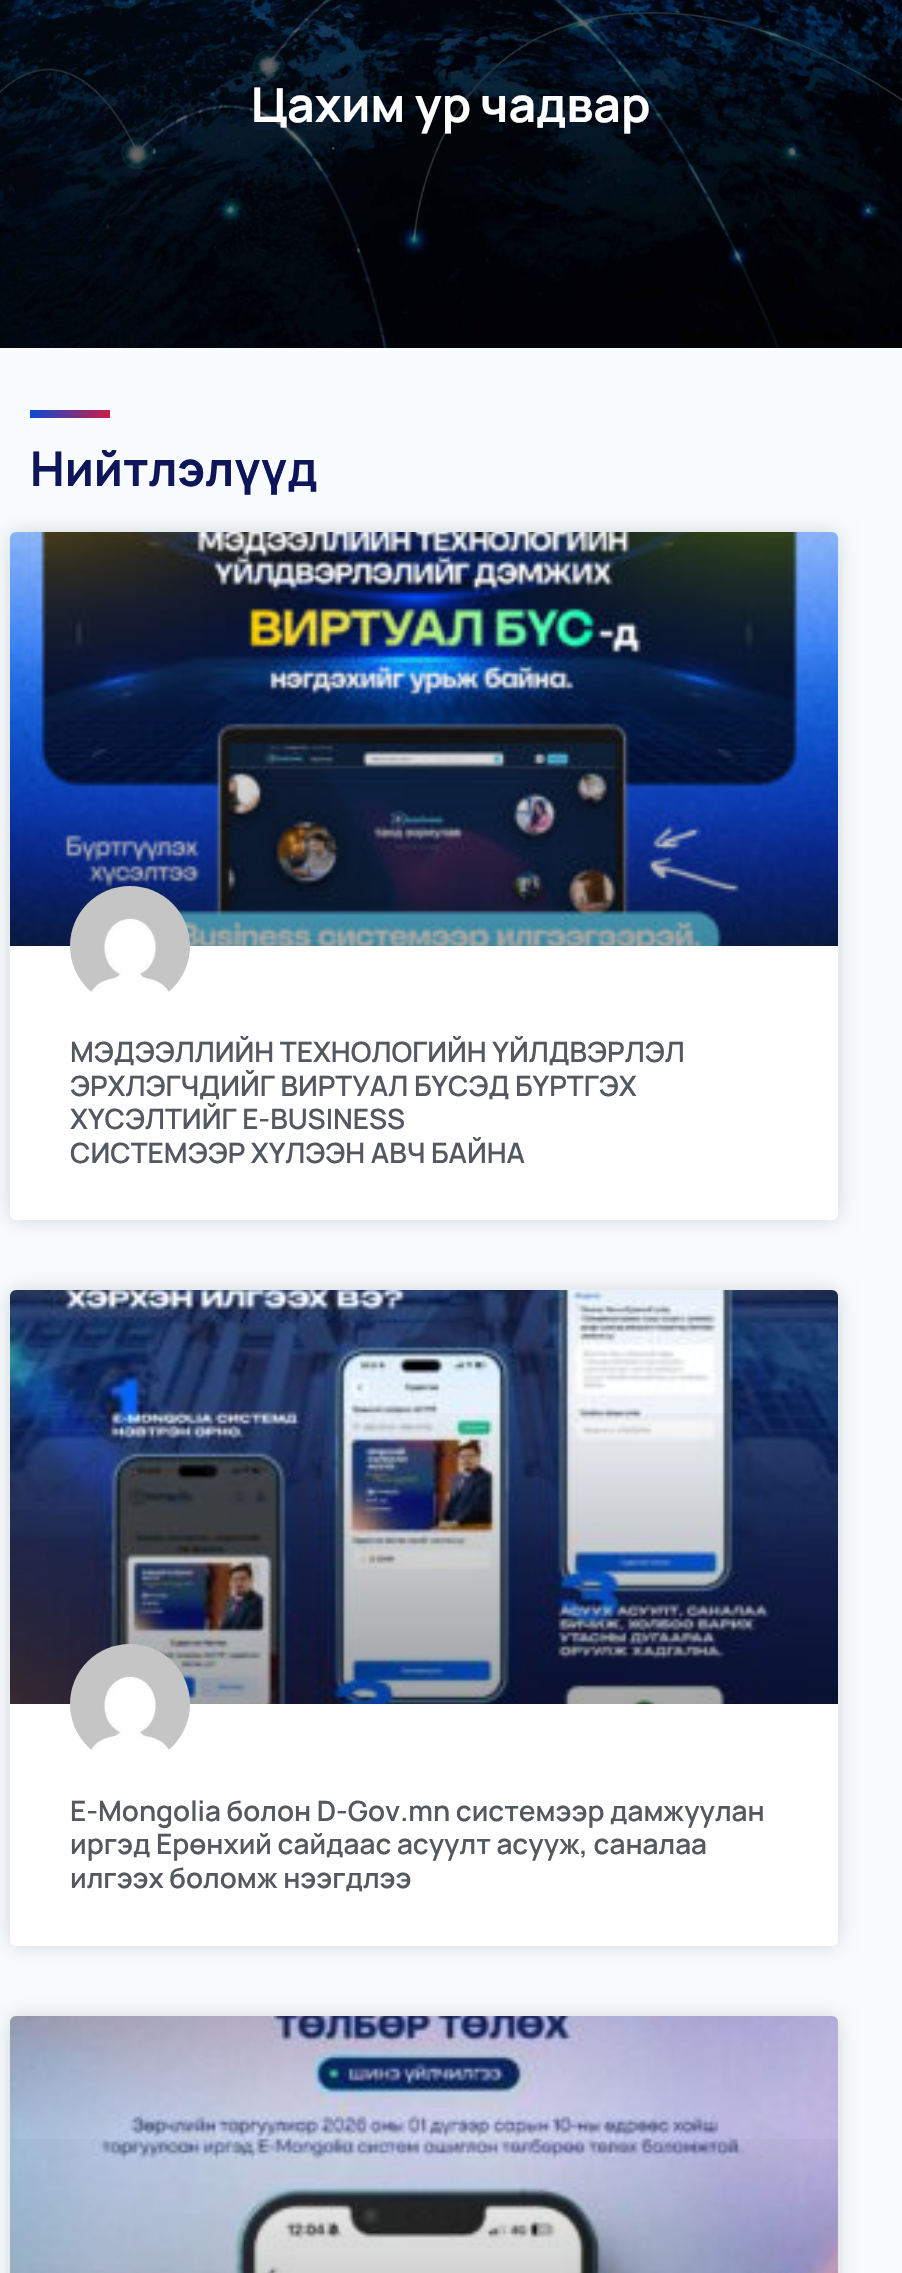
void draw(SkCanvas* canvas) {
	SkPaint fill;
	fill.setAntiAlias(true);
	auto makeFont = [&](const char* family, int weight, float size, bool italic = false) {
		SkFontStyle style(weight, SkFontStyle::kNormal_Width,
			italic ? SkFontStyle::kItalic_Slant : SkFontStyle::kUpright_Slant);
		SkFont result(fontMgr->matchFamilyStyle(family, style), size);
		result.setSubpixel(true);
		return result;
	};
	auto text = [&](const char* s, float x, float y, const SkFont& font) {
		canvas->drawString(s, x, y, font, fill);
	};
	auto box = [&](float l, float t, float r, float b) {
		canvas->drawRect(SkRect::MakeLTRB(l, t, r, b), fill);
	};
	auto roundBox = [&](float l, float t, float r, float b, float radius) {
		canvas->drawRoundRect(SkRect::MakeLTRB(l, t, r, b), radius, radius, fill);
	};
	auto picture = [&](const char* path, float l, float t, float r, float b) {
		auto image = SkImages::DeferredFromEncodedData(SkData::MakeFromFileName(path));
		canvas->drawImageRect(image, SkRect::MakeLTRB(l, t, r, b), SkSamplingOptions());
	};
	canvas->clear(0xFFFFFFFF);
	picture("image0.png", 0, 0, 902, 348);
	fill.setColor(0xFFF8FCFF);
	box(0, 348, 902, 2273);
	{
		const SkColor colors[] = {0xFF004DD9, 0xFFF91327};
		const float stops[] = {0, 1};
		const SkPoint ends[] = {{28, 405}, {128, 420}};
		fill.setShader(SkGradientShader::MakeLinear(ends, colors, stops, 2, SkTileMode::kClamp));
		fill.setAlpha(255);
	}
	box(30, 410, 110, 418);
	fill.setShader(nullptr);
	fill.setColor(0x26000000);
	fill.setMaskFilter(SkMaskFilter::MakeBlur(kNormal_SkBlurStyle, 10));
	canvas->drawRoundRect(SkRect::MakeLTRB(10, 532, 838, 1220), 6, 6, fill);
	fill.setMaskFilter(nullptr);
	fill.setColor(0xFFFFFFFF);
	roundBox(10, 532, 838, 1220, 6);
	picture("image1.png", 10, 532, 838, 946);
	{
		const SkColor colors[] = {0x59000000, 0x00000000};
		const float stops[] = {0, 0.75f};
		const SkPoint ends[] = {{424, 946}, {424, 532}};
		fill.setShader(SkGradientShader::MakeLinear(ends, colors, stops, 2, SkTileMode::kClamp));
		fill.setAlpha(255);
	}
	box(10, 655, 838, 946);
	picture("image2.png", 70, 886, 190, 992);
	fill.setShader(nullptr);
	fill.setColor(0x26000000);
	fill.setMaskFilter(SkMaskFilter::MakeBlur(kNormal_SkBlurStyle, 10));
	canvas->drawRoundRect(SkRect::MakeLTRB(10, 1290, 838, 1946), 6, 6, fill);
	fill.setMaskFilter(nullptr);
	fill.setColor(0xFFFFFFFF);
	roundBox(10, 1290, 838, 1946, 6);
	picture("image3.png", 10, 1290, 838, 1704);
	{
		const SkColor colors[] = {0x59000000, 0x00000000};
		const float stops[] = {0, 0.75f};
		const SkPoint ends[] = {{424, 1704}, {424, 1290}};
		fill.setShader(SkGradientShader::MakeLinear(ends, colors, stops, 2, SkTileMode::kClamp));
		fill.setAlpha(255);
	}
	box(10, 1413, 838, 1704);
	picture("image4.png", 70, 1644, 190, 1750);
	fill.setShader(nullptr);
	fill.setColor(0x26000000);
	fill.setMaskFilter(SkMaskFilter::MakeBlur(kNormal_SkBlurStyle, 10));
	canvas->drawRoundRect(SkRect::MakeLTRB(10, 2016, 838, 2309), 6, 6, fill);
	fill.setMaskFilter(nullptr);
	picture("image5.png", 10, 2016, 838, 2273);
	{
		const SkColor colors[] = {0x59000000, 0x00000000};
		const float stops[] = {0, 0.75f};
		const SkPoint ends[] = {{424, 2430}, {424, 2016}};
		fill.setShader(SkGradientShader::MakeLinear(ends, colors, stops, 2, SkTileMode::kClamp));
		fill.setAlpha(255);
	}
	box(10, 2139, 838, 2273);
	auto font1 = makeFont("Manrope", 700, 48);
	fill.setShader(nullptr);
	fill.setColor(0xFFFFFFFF);
	text("Цахим ур чадвар", 251, 122, font1);
	fill.setColor(0xFF0E1558);
	text("Нийтлэлүүд", 30, 486, font1);
	auto font2 = makeFont("Manrope", 600, 28);
	fill.setColor(0xFF54595F);
	text("МЭДЭЭЛЛИЙН ТЕХНОЛОГИЙН ҮЙЛДВЭРЛЭЛ", 70, 1062, font2);
	text("ЭРХЛЭГЧДИЙГ ВИРТУАЛ БҮСЭД БҮРТГЭХ", 70, 1096, font2);
	text("ХҮСЭЛТИЙГ E-BUSINESS", 70, 1129, font2);
	text("СИСТЕМЭЭР ХҮЛЭЭН АВЧ БАЙНА", 70, 1163, font2);
	text("E-Mongolia болон D-Gov.mn системээр дамжуулан", 70, 1821, font2);
	text("иргэд Ерөнхий сайдаас асуулт асууж, саналаа", 70, 1854, font2);
	text("илгээх боломж нээгдлээ", 70, 1888, font2);
}
